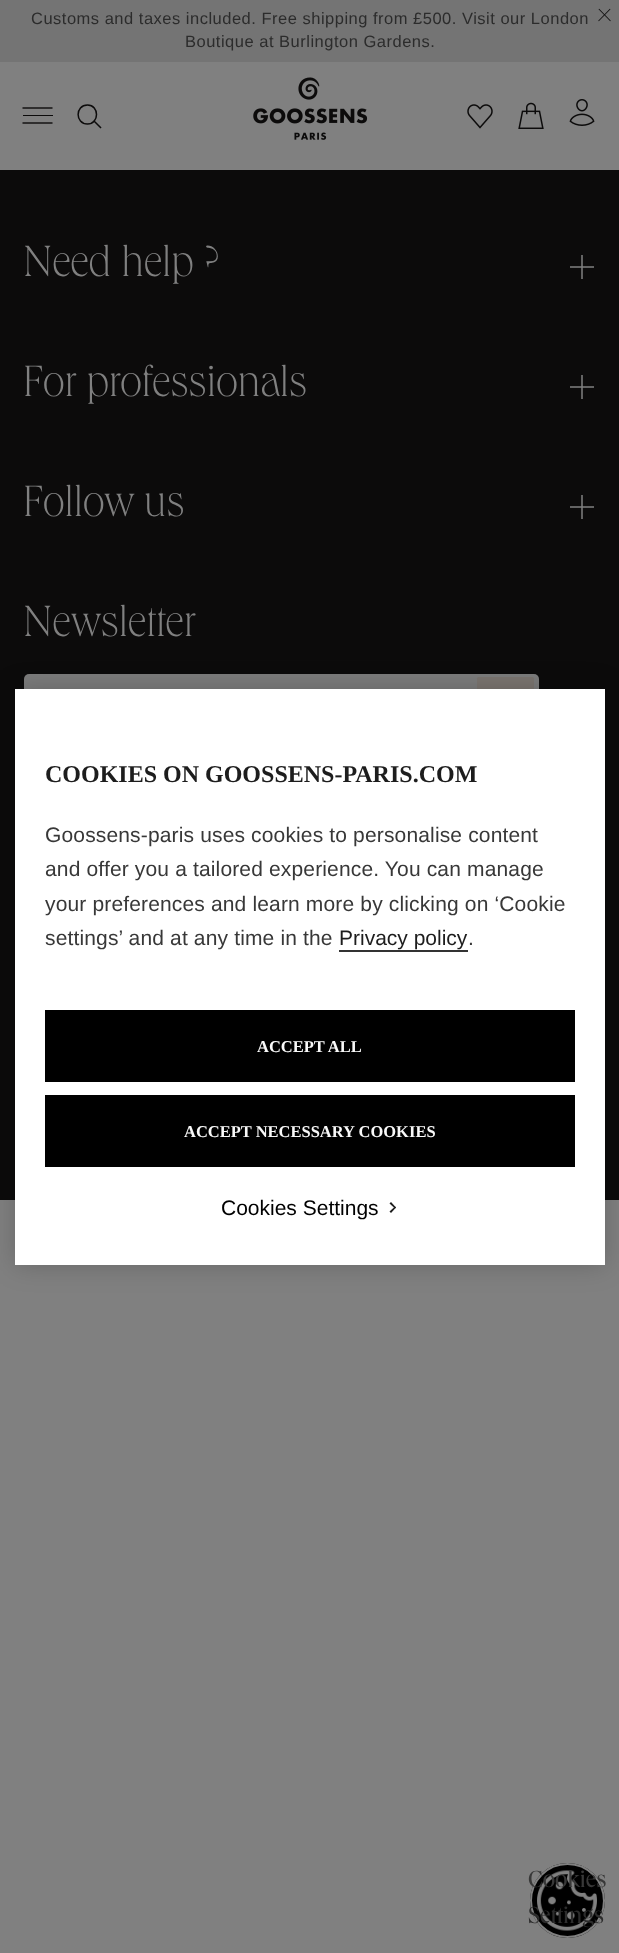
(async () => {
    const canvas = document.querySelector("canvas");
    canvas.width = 619;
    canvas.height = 1953;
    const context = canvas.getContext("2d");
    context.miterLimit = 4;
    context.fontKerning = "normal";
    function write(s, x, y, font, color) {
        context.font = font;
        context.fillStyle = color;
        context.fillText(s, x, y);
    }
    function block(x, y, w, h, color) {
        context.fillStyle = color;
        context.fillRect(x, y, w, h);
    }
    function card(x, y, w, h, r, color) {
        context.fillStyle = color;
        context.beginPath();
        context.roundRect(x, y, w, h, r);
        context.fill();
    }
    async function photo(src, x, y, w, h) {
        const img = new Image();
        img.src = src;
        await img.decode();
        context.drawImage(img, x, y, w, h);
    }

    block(0, 0, 619, 1953, "rgb(128, 128, 128)");
    block(0, 0, 619, 62, "rgb(116, 116, 116)");
    context.letterSpacing = "0.5px";
    write("Customs and taxes included. Free shipping from £500. Visit our London", 31, 24, "16.5px Liberation Sans", "rgb(44, 44, 44)");
    await photo("media/1.png", 598, 8, 13, 14);
    write("Boutique at Burlington Gardens.", 185, 47, "16.5px Liberation Sans", "rgb(44, 44, 44)");
    context.beginPath();
    context.moveTo(22.5, 108);
    context.lineTo(52.5, 108);
    context.strokeStyle = "rgb(12, 11, 11)";
    context.lineWidth = 1.4;
    context.stroke();
    block(23, 115, 30, 1, "rgb(12, 11, 11)");
    context.beginPath();
    context.moveTo(22.5, 123);
    context.lineTo(52.5, 123);
    context.stroke();
    context.beginPath();
    context.moveTo(87.5, 124);
    context.bezierCurveTo(99.5, 124, 99.5, 105, 87.5, 105);
    context.bezierCurveTo(75, 105, 75, 124, 87.5, 124);
    context.closePath();
    context.moveTo(94, 121);
    context.lineTo(100.5, 127.5);
    context.lineWidth = 1.5;
    context.lineCap = "square";
    context.stroke();
    await photo("media/2.png", 253, 77, 115, 63);
    await photo("media/3.png", 467, 104, 26, 25);
    await photo("media/4.png", 518, 102, 26, 27);
    await photo("media/5.png", 569, 99, 26, 27);
    block(0, 170, 619, 1030, "rgb(12, 11, 11)");
    block(581, 495, 2, 24, "rgb(99, 99, 99)");
    block(581, 375, 2, 24, "rgb(99, 99, 99)");
    block(581, 255, 2, 24, "rgb(99, 99, 99)");
    context.letterSpacing = "0px";
    write("Need help ?", 23, 276, "100 45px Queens", "rgb(128, 128, 128)");
    block(570, 266, 24, 2, "rgb(99, 99, 99)");
    block(581, 266, 2, 2, "rgb(121, 121, 121)");
    write("For professionals", 23, 396, "100 45px Queens", "rgb(128, 128, 128)");
    block(570, 386, 24, 2, "rgb(99, 99, 99)");
    block(581, 386, 2, 2, "rgb(121, 121, 121)");
    write("Follow us", 23, 516, "100 45px Queens", "rgb(128, 128, 128)");
    block(570, 506, 24, 2, "rgb(99, 99, 99)");
    block(581, 506, 2, 2, "rgb(121, 121, 121)");
    write("Newsletter", 23, 636, "100 45px Queens", "rgb(128, 128, 128)");
    card(24, 674, 515, 61, 5, "rgb(124, 124, 124)");
    card(477, 677, 57, 54, 1.5, "rgb(123, 117, 112)");
    context.fillStyle = "rgba(0, 0, 0, 0.2)";
    context.filter = "blur(13.5px)";
    context.beginPath();
    context.rect(15, 689, 590, 576);
    context.fill();
    context.filter = "none";
    block(15, 689, 590, 576, "rgb(255, 255, 255)");
    write("COOKIES ON GOOSSENS-PARIS.COM", 45, 782, "bold 24px Liberation Serif", "rgb(29, 29, 29)");
    context.letterSpacing = "0.15px";
    write("Goossens-paris uses cookies to personalise content", 45, 842, "21px Liberation Sans", "rgb(56, 56, 56)");
    write("and offer you a tailored experience. You can manage", 45, 876, "21px Liberation Sans", "rgb(56, 56, 56)");
    write("your preferences and learn more by clicking on ‘Cookie", 45, 911, "21px Liberation Sans", "rgb(56, 56, 56)");
    write("settings’ and at any time in the", 45, 945, "21px Liberation Sans", "rgb(56, 56, 56)");
    context.letterSpacing = "0px";
    write("Privacy policy", 339, 945, "21px Liberation Sans", "rgb(29, 29, 29)");
    block(339, 950, 129, 2, "rgb(51, 51, 51)");
    context.letterSpacing = "0.15px";
    write(".", 468, 945, "21px Liberation Sans", "rgb(56, 56, 56)");
    block(45, 1010, 530, 72, "rgb(0, 0, 0)");
    context.letterSpacing = "0px";
    write("ACCEPT ALL", 257, 1052, "bold 16.5px Liberation Serif", "rgb(249, 249, 249)");
    block(45, 1095, 530, 72, "rgb(0, 0, 0)");
    write("ACCEPT NECESSARY COOKIES", 184, 1137, "bold 16.5px Liberation Serif", "rgb(249, 249, 249)");
    write("Cookies Settings", 221, 1215, "21px Liberation Sans", "rgb(0, 0, 0)");
    context.fillStyle = "rgb(29, 29, 29)";
    context.beginPath();
    context.moveTo(389.5, 1203.5);
    context.lineTo(391, 1202);
    context.lineTo(396, 1207.5);
    context.lineTo(395, 1208.5);
    context.closePath();
    context.fill();
    context.beginPath();
    context.moveTo(389.5, 1211.5);
    context.lineTo(395, 1206.5);
    context.lineTo(396, 1207.5);
    context.lineTo(391, 1213);
    context.closePath();
    context.fill();
    context.fillStyle = "rgb(0, 0, 0)";
    context.beginPath();
    context.arc(567.5, 1900.5, 37.5, 0, Math.PI * 2);
    context.fill();
    await photo("media/6.png", 537, 1870, 60, 61);
    context.beginPath();
    context.arc(567.5, 1900.5, 36.5, 0, Math.PI * 2);
    context.strokeStyle = "rgb(128, 128, 128)";
    context.lineWidth = 2;
    context.stroke();
    write("Cookies", 528, 1887, "24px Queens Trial", "rgb(56, 56, 56)");
    write("Settings", 528, 1923, "24px Queens Trial", "rgb(44, 44, 44)");
})();
